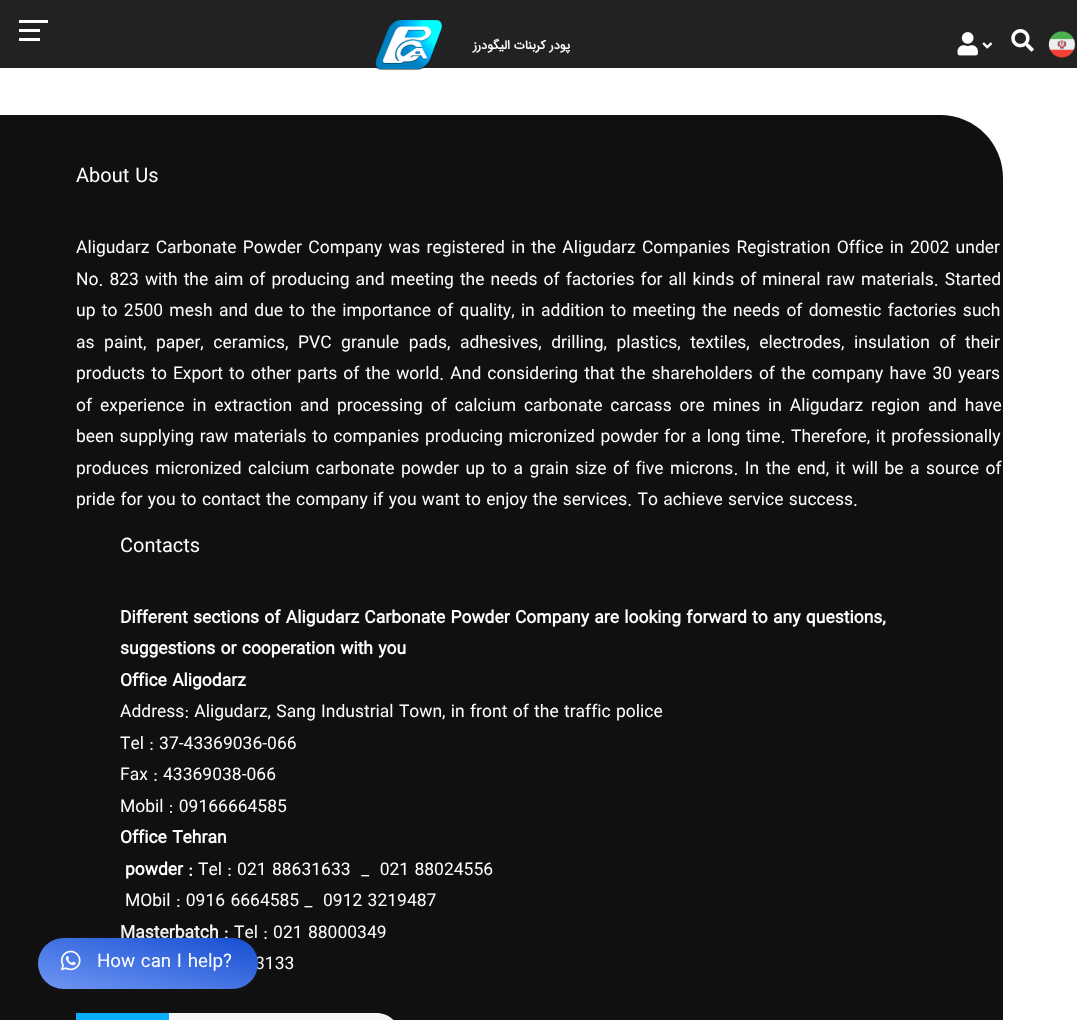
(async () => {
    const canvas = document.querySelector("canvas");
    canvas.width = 1077;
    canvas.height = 1020;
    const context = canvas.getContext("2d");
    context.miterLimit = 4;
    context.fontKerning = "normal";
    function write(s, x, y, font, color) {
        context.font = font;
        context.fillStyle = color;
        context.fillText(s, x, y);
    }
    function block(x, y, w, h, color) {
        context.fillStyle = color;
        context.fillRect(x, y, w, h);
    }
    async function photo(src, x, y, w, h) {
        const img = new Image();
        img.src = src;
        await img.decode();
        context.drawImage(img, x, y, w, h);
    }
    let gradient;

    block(0, 0, 1077, 1020, "rgb(255, 255, 255)");
    context.fillStyle = "rgba(0, 0, 0, 0.3)";
    context.filter = "blur(0.5px)";
    context.beginPath();
    context.rect(0, 0, 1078, 68);
    context.fill();
    context.filter = "none";
    block(0, 0, 1077, 68, "rgb(34, 34, 34)");
    block(19, 29, 21, 3, "rgb(255, 255, 255)");
    block(19, 20, 29, 3, "rgb(255, 255, 255)");
    block(19, 38, 21, 3, "rgb(255, 255, 255)");
    await photo("media/1.png", 375, 20, 68, 50);
    context.direction = "rtl";
    write("پودر کربنات الیگودرز", 570, 49, "bold 12.5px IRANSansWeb", "rgb(255, 255, 255)");
    await photo("media/2.png", 957, 32, 21, 24);
    await photo("media/3.png", 982, 42, 10, 7);
    await photo("media/4.png", 1011, 29, 23, 23);
    await photo("media/5.png", 1048, 31, 28, 27);
    context.fillStyle = "rgb(17, 16, 16)";
    context.beginPath();
    context.moveTo(0, 115);
    context.lineTo(940, 115);
    context.bezierCurveTo(975, 115, 1003, 143, 1003, 178);
    context.lineTo(1003, 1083);
    context.lineTo(0, 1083);
    context.closePath();
    context.fill();
    context.direction = "ltr";
    write("About Us", 76, 182, "20px IRANSansWeb", "rgb(255, 255, 255)");
    context.wordSpacing = "1px";
    write("Aligudarz Carbonate Powder Company was registered in the Aligudarz Companies Registration Office in 2002 under", 76, 253, "17.5px IRANSansWeb", "rgb(255, 255, 255)");
    context.wordSpacing = "0.7px";
    write("No. 823 with the aim of producing and meeting the needs of factories for all kinds of mineral raw materials. Started", 76, 285, "17.5px IRANSansWeb", "rgb(255, 255, 255)");
    context.wordSpacing = "1px";
    write("up to 2500 mesh and due to the importance of quality, in addition to meeting the needs of domestic factories such", 76, 316, "17.5px IRANSansWeb", "rgb(255, 255, 255)");
    context.wordSpacing = "4.25px";
    write("as paint, paper, ceramics, PVC granule pads, adhesives, drilling, plastics, textiles, electrodes, insulation of their", 76, 348, "17.5px IRANSansWeb", "rgb(255, 255, 255)");
    context.wordSpacing = "0.75px";
    write("products to Export to other parts of the world. And considering that the shareholders of the company have 30 years", 76, 379, "17.5px IRANSansWeb", "rgb(255, 255, 255)");
    context.wordSpacing = "2.6px";
    write("of experience in extraction and processing of calcium carbonate carcass ore mines in Aligudarz region and have", 76, 411, "17.5px IRANSansWeb", "rgb(255, 255, 255)");
    context.wordSpacing = "0.25px";
    write("been supplying raw materials to companies producing micronized powder for a long time. Therefore, it professionally", 76, 442, "17.5px IRANSansWeb", "rgb(255, 255, 255)");
    context.wordSpacing = "1.2px";
    write("produces micronized calcium carbonate powder up to a grain size of five microns. In the end, it will be a source of", 76, 474, "17.5px IRANSansWeb", "rgb(255, 255, 255)");
    context.wordSpacing = "0px";
    write("pride for you to contact the company if you want to enjoy the services. To achieve service success.", 76, 505, "17.5px IRANSansWeb", "rgb(255, 255, 255)");
    write("Contacts", 120, 552, "20px IRANSansWeb", "rgb(255, 255, 255)");
    write("Different sections of Aligudarz Carbonate Powder Company are looking forward to any questions,", 120, 623, "bold 17.5px IRANSansWeb", "rgb(255, 255, 255)");
    write("suggestions or cooperation with you", 120, 654, "bold 17.5px IRANSansWeb", "rgb(255, 255, 255)");
    write("Office Aligodarz", 120, 686, "bold 17.5px IRANSansWeb", "rgb(255, 255, 255)");
    write("Address: Aligudarz, Sang Industrial Town, in front of the traffic police", 120, 717, "17.5px IRANSansWeb", "rgb(255, 255, 255)");
    write("Tel : 37-43369036-066", 120, 749, "17.5px IRANSansWeb", "rgb(255, 255, 255)");
    write("Fax : 43369038-066", 120, 780, "17.5px IRANSansWeb", "rgb(255, 255, 255)");
    write("Mobil : 09166664585", 120, 812, "17.5px IRANSansWeb", "rgb(255, 255, 255)");
    write("Office Tehran", 120, 843, "bold 17.5px IRANSansWeb", "rgb(255, 255, 255)");
    write("powder :", 125, 875, "bold 17.5px IRANSansWeb", "rgb(255, 255, 255)");
    write("Tel : 021 88631633  _  021 88024556", 198, 875, "17.5px IRANSansWeb", "rgb(255, 255, 255)");
    write("MObil : 0916 6664585 _  0912 3219487", 125, 906, "17.5px IRANSansWeb", "rgb(255, 255, 255)");
    write("Masterbatch :", 120, 938, "bold 17.5px IRANSansWeb", "rgb(255, 255, 255)");
    write("Tel : 021 88000349", 234, 938, "17.5px IRANSansWeb", "rgb(255, 255, 255)");
    write("3133", 255, 969, "17.5px IRANSansWeb", "rgb(255, 255, 255)");
    context.fillStyle = "rgb(244, 244, 249)";
    context.beginPath();
    context.moveTo(76, 1013);
    context.lineTo(376, 1013);
    context.bezierCurveTo(390, 1013, 401, 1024, 401, 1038);
    context.lineTo(401, 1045);
    context.lineTo(101, 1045);
    context.bezierCurveTo(87, 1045, 76, 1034, 76, 1020);
    context.closePath();
    context.fill();
    block(76, 1013, 93, 7, "rgb(10, 173, 253)");
    context.fillStyle = "rgba(32, 33, 36, 0.28)";
    context.filter = "blur(9.5px)";
    context.beginPath();
    context.roundRect(38, 939, 220, 51, 25.5);
    context.fill();
    context.filter = "none";
    gradient = context.createLinearGradient(136, 1012, 159, 915);
    gradient.addColorStop(0, "rgb(111, 150, 243)");
    gradient.addColorStop(1, "rgb(22, 78, 210)");
    context.fillStyle = gradient;
    context.beginPath();
    context.roundRect(38, 938, 220, 51, 25.5);
    context.fill();
    await photo("media/6.png", 60, 950, 21, 21);
    write("How can I help?", 97, 967, "18.75px IRANSansWeb", "rgb(255, 255, 255)");
})();
